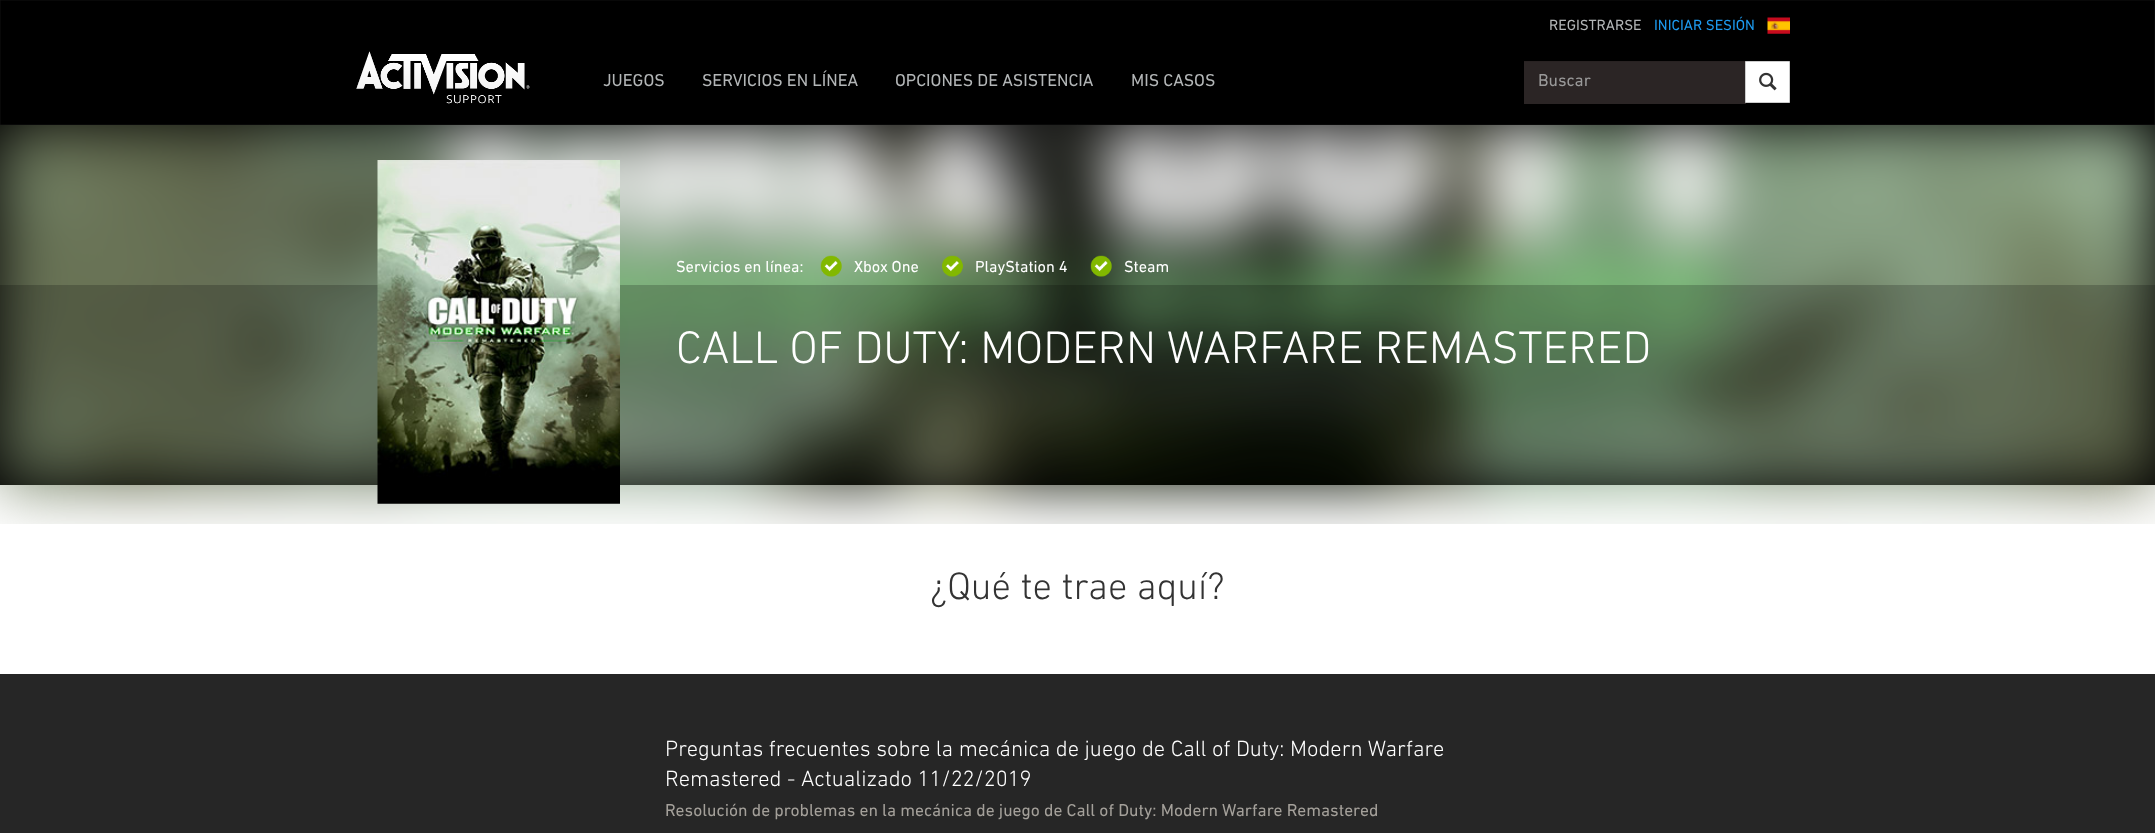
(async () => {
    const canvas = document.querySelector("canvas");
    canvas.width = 2155;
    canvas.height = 833;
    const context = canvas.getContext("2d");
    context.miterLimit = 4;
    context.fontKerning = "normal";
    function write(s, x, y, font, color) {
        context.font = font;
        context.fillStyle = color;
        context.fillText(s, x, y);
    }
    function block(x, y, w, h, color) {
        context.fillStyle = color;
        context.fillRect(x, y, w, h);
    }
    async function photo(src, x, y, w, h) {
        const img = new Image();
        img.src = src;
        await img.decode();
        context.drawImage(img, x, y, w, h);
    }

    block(0, 0, 2155, 833, "rgb(38, 38, 38)");
    context.fillStyle = "rgb(0, 0, 0)";
    context.beginPath();
    context.rect(0.5, 0.5, 2154, 124);
    context.fill();
    context.strokeStyle = "rgb(8, 8, 8)";
    context.stroke();
    write("REGISTRARSE", 1549, 30, "15px DIN Next", "rgb(179, 182, 183)");
    write("INICIAR SESIÓN", 1654, 30, "15px DIN Next", "rgb(29, 155, 240)");
    await photo("media/1.png", 1767, 17, 23, 17);
    await photo("media/2.png", 356, 51, 174, 53);
    write("JUEGOS", 603, 86, "17.5px DIN Next", "rgb(179, 182, 183)");
    write("SERVICIOS EN LÍNEA", 702, 86, "17.5px DIN Next", "rgb(179, 182, 183)");
    write("OPCIONES DE ASISTENCIA", 895, 86, "17.5px DIN Next", "rgb(179, 182, 183)");
    write("MIS CASOS", 1131, 86, "17.5px DIN Next", "rgb(179, 182, 183)");
    block(1524, 62, 222, 42, "rgb(43, 37, 37)");
    block(1524, 61, 222, 1, "rgb(40, 34, 34)");
    write("Buscar", 1538, 86, "17.5px DIN Next", "rgb(153, 153, 153)");
    context.fillStyle = "rgb(255, 255, 255)";
    context.beginPath();
    context.rect(1745.5, 61.5, 44, 41);
    context.fill();
    context.strokeStyle = "rgb(204, 204, 204)";
    context.stroke();
    await photo("media/3.png", 1759, 72, 18, 19);
    block(0, 125, 2155, 360, "rgb(0, 0, 0)");
    block(0, 485, 2155, 189, "rgb(255, 255, 255)");
    await photo("media/4.png", 0, 125, 2155, 399);
    block(0, 285, 2155, 200, "rgba(0, 0, 0, 0.2)");
    await photo("media/5.png", 377, 160, 243, 344);
    write("Servicios en línea:", 676, 272, "16.25px DIN Next", "rgb(255, 255, 255)");
    await photo("media/6.png", 820, 255, 22, 22);
    write("Xbox One", 854, 272, "16.25px DIN Next", "rgb(255, 255, 255)");
    await photo("media/7.png", 942, 255, 21, 22);
    write("PlayStation 4", 975, 272, "16.25px DIN Next", "rgb(255, 255, 255)");
    await photo("media/8.png", 1090, 255, 22, 22);
    write("Steam", 1124, 272, "16.25px DIN Next", "rgb(255, 255, 255)");
    write("CALL OF DUTY: MODERN WARFARE REMASTERED", 676, 363, "300 46.25px DIN Next", "rgb(255, 255, 255)");
    write("¿Qué te trae aquí?", 930, 599, "300 38.75px DIN Next", "rgb(51, 51, 51)");
    write("Preguntas frecuentes sobre la mecánica de juego de Call of Duty: Modern Warfare", 665, 756, "300 22.5px DIN Next", "rgb(255, 255, 255)");
    write("Remastered - Actualizado 11/22/2019", 665, 786, "300 22.5px DIN Next", "rgb(255, 255, 255)");
    write("Resolución de problemas en la mecánica de juego de Call of Duty: Modern Warfare Remastered", 665, 816, "17.5px DIN Next", "rgb(164, 160, 154)");
})();
